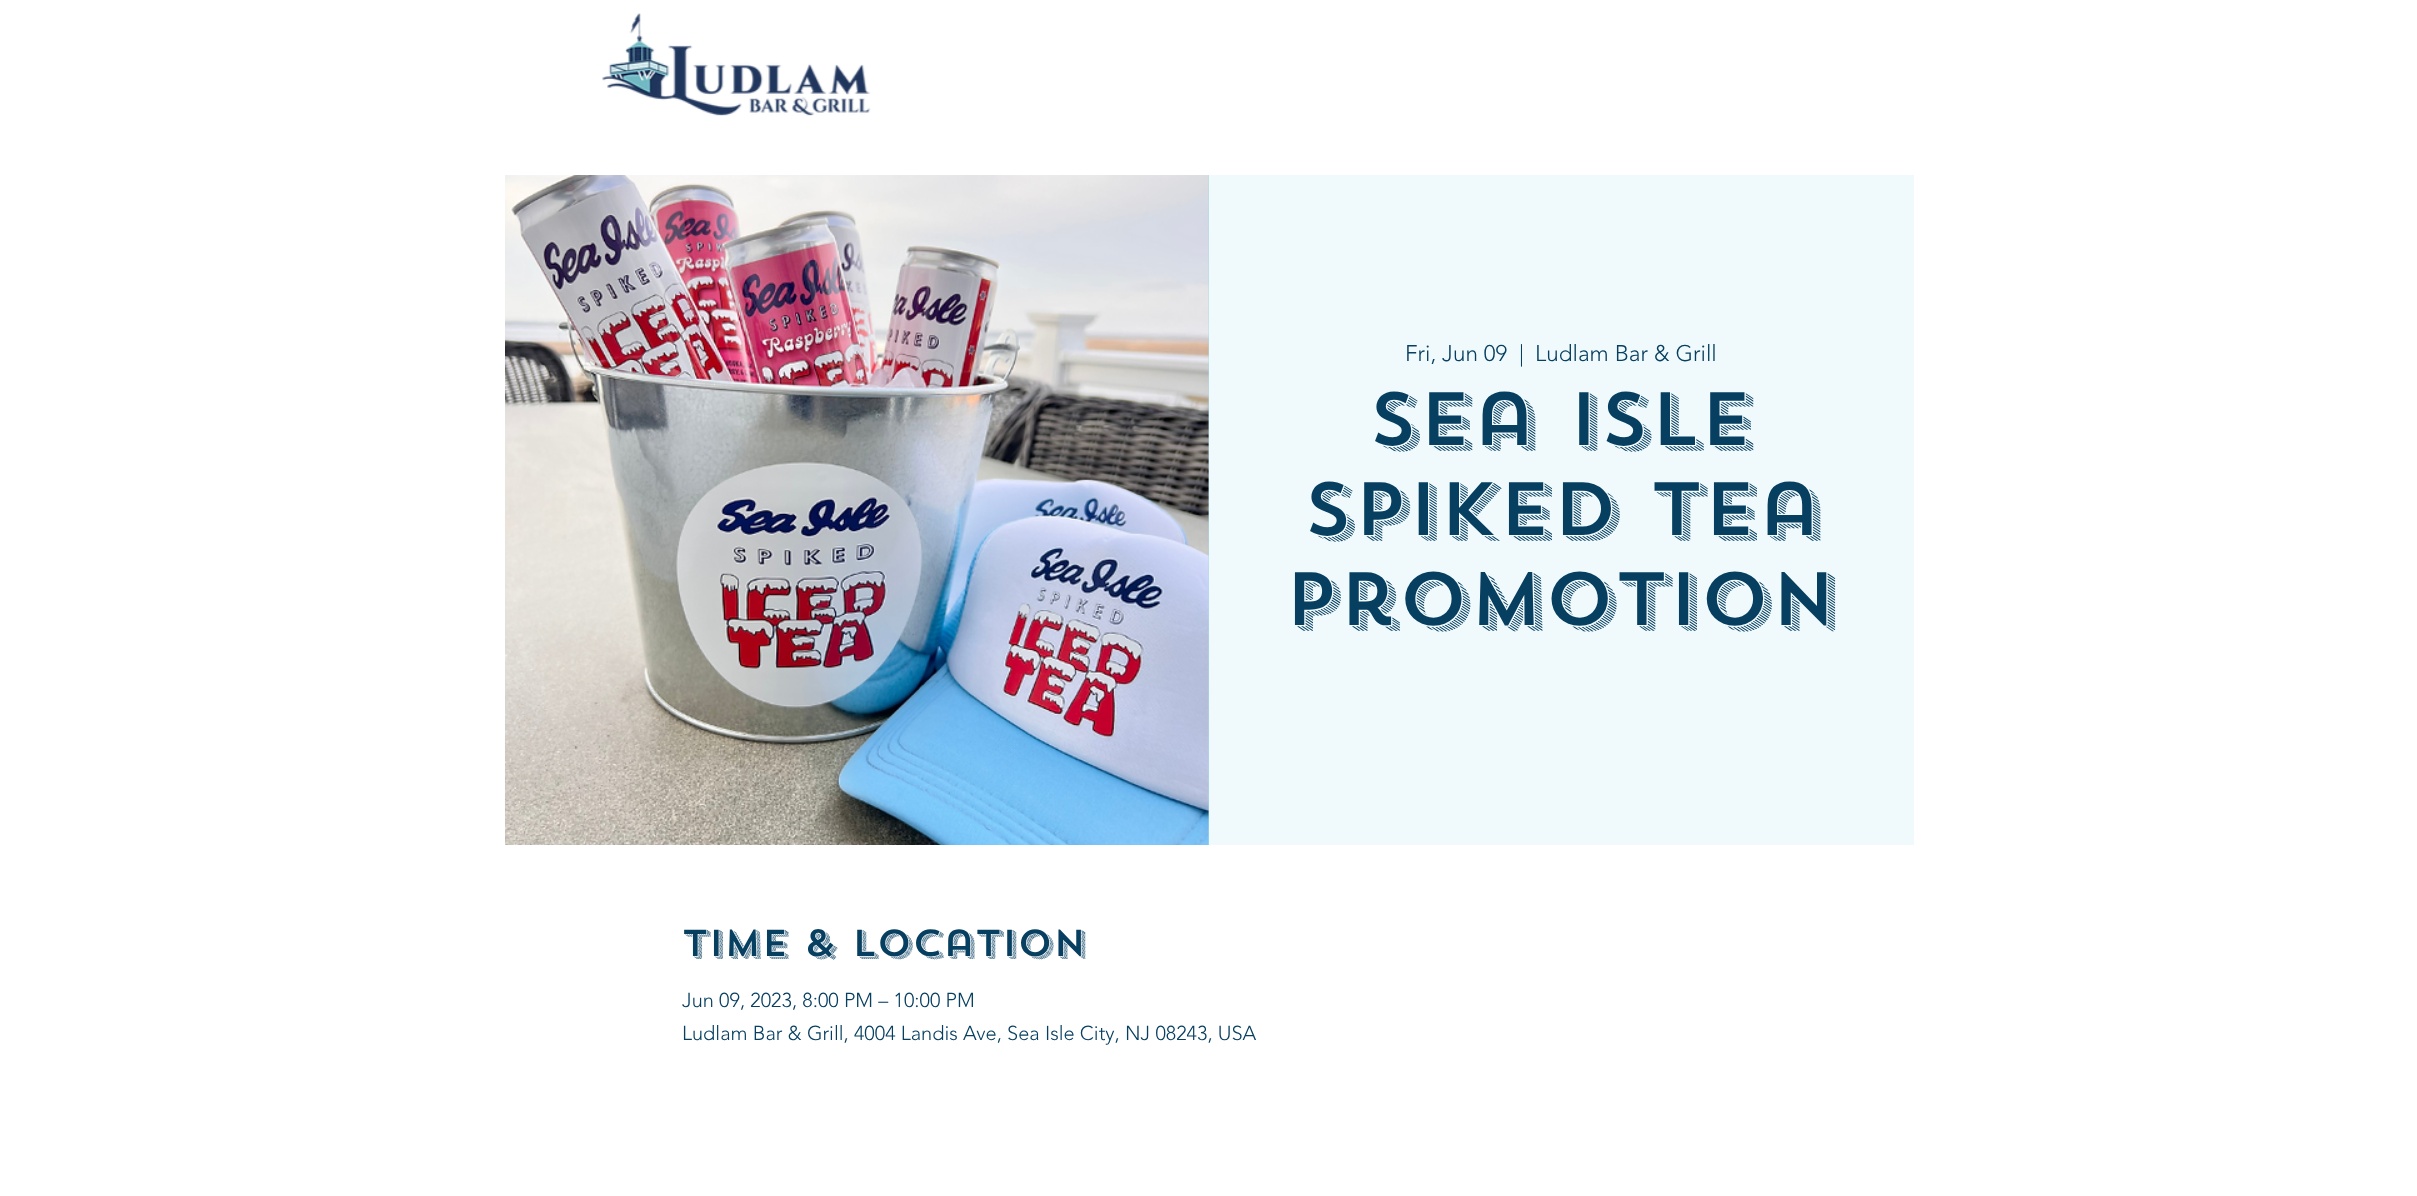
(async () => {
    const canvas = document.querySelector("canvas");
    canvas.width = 2417;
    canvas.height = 1196;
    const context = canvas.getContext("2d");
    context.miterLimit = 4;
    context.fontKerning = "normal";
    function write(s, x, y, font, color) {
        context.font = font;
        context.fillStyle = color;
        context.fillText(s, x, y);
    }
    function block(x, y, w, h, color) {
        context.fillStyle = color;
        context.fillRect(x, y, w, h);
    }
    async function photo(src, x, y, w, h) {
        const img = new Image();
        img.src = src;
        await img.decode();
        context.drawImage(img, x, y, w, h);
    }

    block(0, 0, 2417, 1196, "rgb(255, 255, 255)");
    await photo("media/1.png", 602, 13, 269, 103);
    block(1208, 175, 1, 670, "rgb(167, 222, 231)");
    await photo("media/2.png", 505, 175, 704, 670);
    block(1209, 175, 705, 670, "rgb(240, 250, 252)");
    write("Fri, Jun 09", 1405, 361, "300 22.5px 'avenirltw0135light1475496'", "rgb(7, 63, 96)");
    write("|", 1519, 361, "300 22.5px 'avenirltw0135light1475496'", "rgb(7, 63, 96)");
    write("Ludlam Bar & Grill", 1535, 361, "300 22.5px 'avenirltw0135light1475496'", "rgb(7, 63, 96)");
    write("Sea Isle", 1368, 445, "500 75px 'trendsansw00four'", "rgb(7, 63, 96)");
    write("Spiked Tea", 1303, 535, "500 75px 'trendsansw00four'", "rgb(7, 63, 96)");
    write("Promotion", 1284, 625, "500 75px 'trendsansw00four'", "rgb(7, 63, 96)");
    write("Time & Location", 682, 956, "500 37.5px 'trendsansw00four'", "rgb(7, 63, 96)");
    write("Jun 09, 2023, 8:00 PM – 10:00 PM", 682, 1007, "300 20px 'avenirltw0135light1475496'", "rgb(7, 63, 96)");
    write("Ludlam Bar & Grill, 4004 Landis Ave, Sea Isle City, NJ 08243, USA", 682, 1040, "300 20px 'avenirltw0135light1475496'", "rgb(7, 63, 96)");
})();
